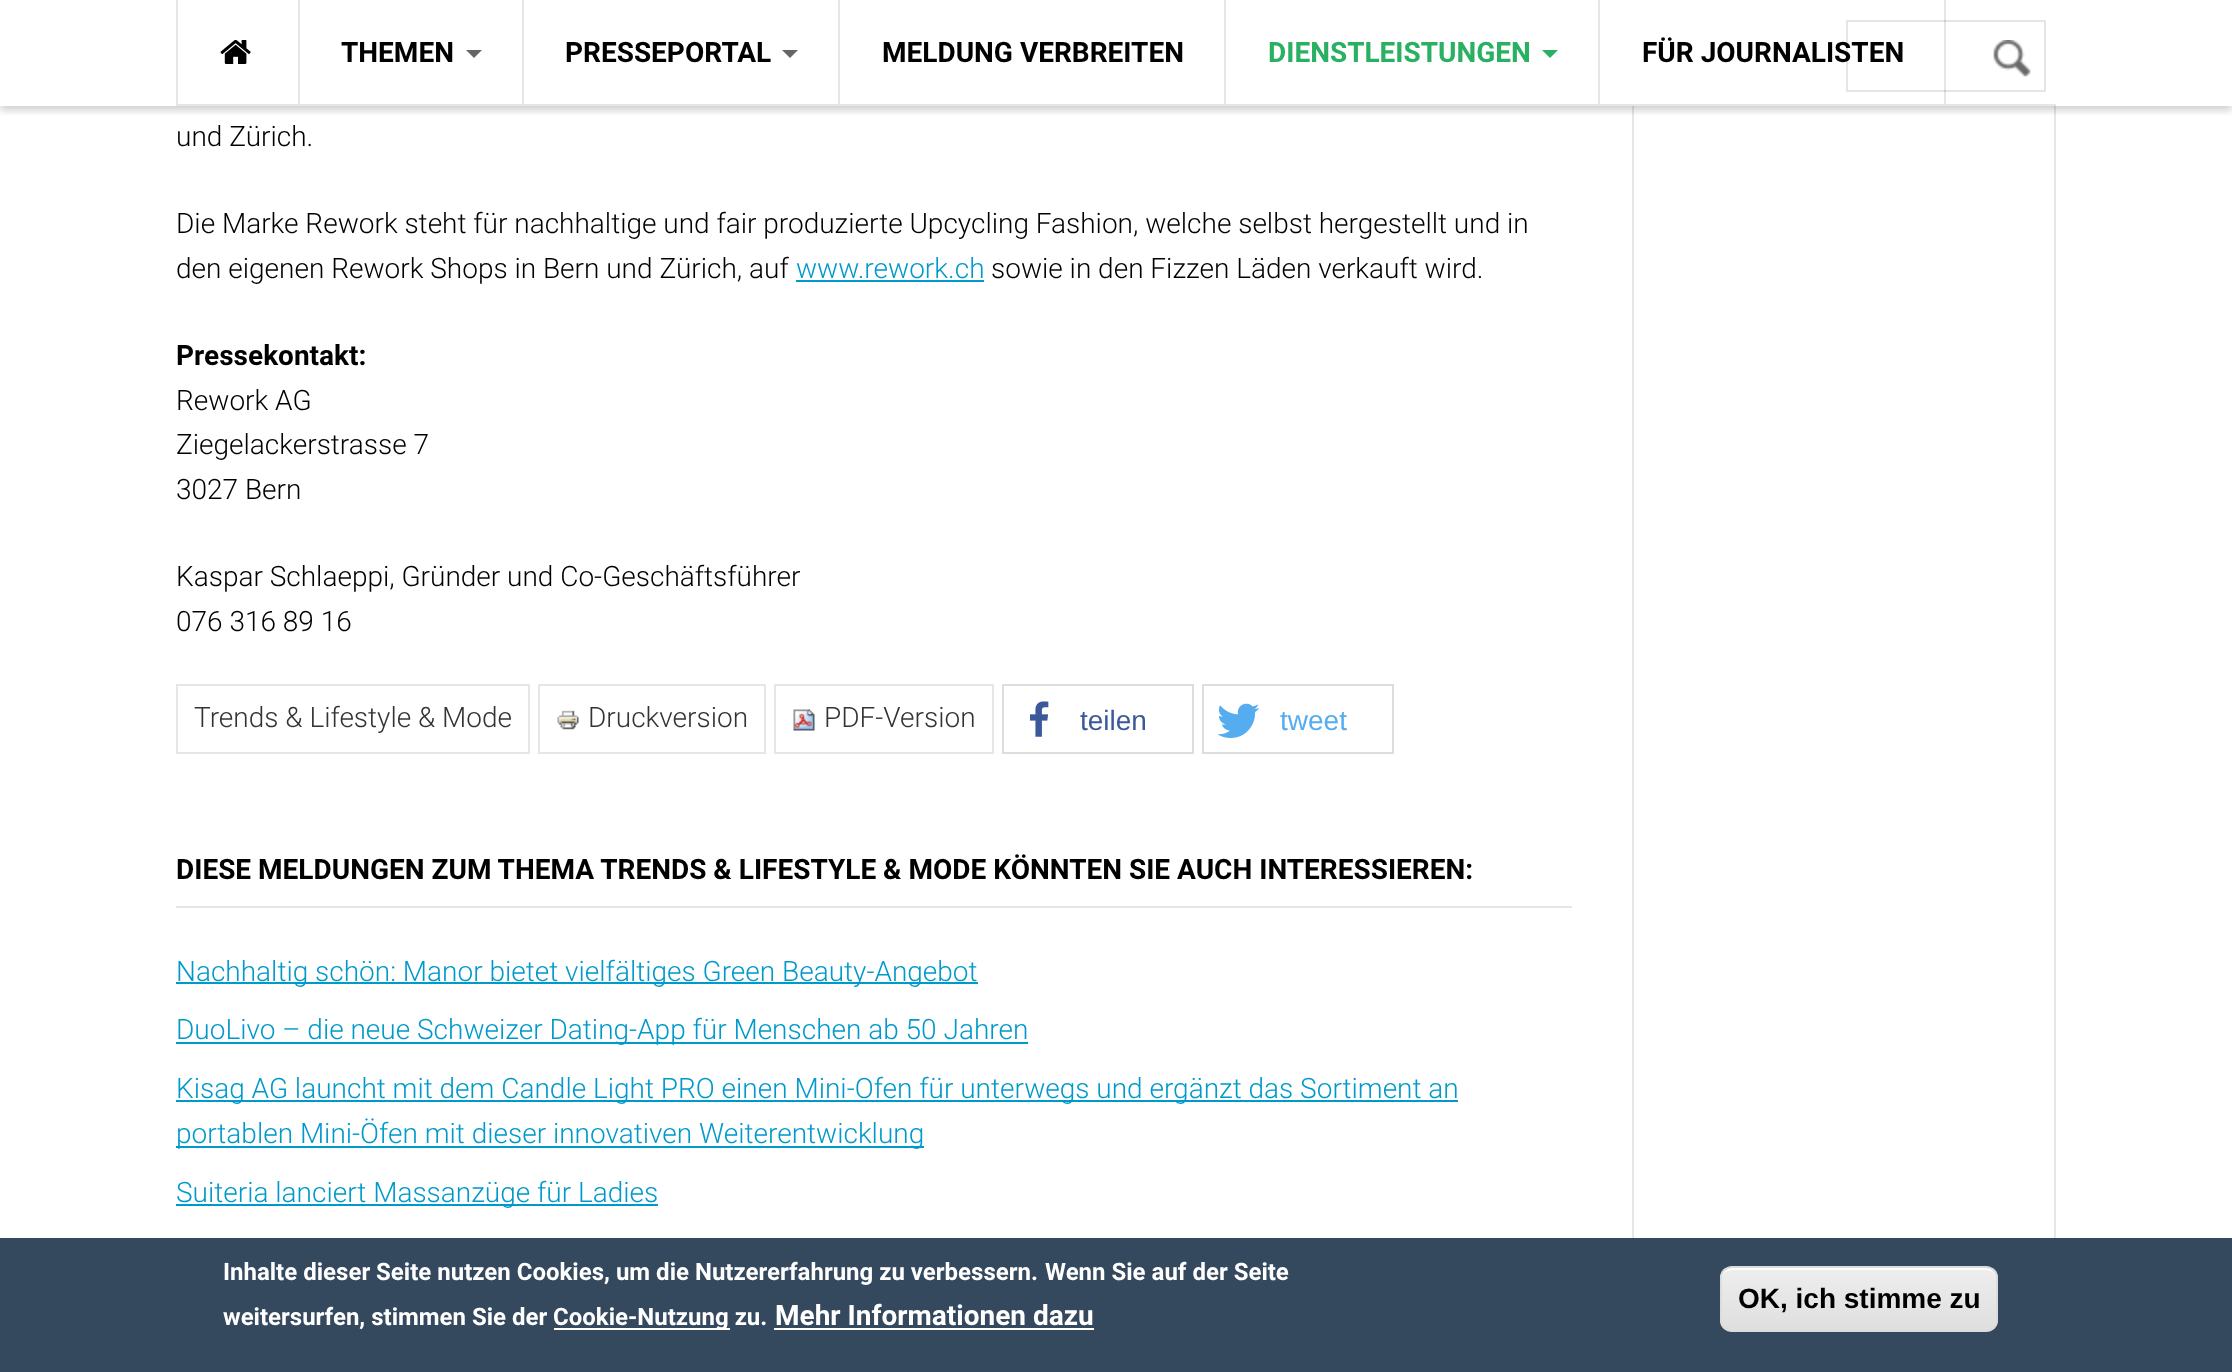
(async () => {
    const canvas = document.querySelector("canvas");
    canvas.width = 2232;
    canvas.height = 1372;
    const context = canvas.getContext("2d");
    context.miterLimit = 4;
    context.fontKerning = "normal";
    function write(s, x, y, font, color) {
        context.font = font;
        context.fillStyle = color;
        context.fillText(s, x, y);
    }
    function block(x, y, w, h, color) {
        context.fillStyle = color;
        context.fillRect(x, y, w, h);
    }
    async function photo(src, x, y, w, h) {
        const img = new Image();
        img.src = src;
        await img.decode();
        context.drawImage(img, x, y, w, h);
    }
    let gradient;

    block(0, 0, 2232, 1372, "rgb(255, 255, 255)");
    block(1632, 106, 2, 1132, "rgb(230, 230, 230)");
    block(2054, 106, 2, 1132, "rgb(230, 230, 230)");
    context.save();
    context.beginPath();
    context.rect(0, 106, 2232, 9);
    context.clip();
    context.fillStyle = "rgba(0, 0, 0, 0.2)";
    context.filter = "blur(4px)";
    context.beginPath();
    context.rect(0, 0, 2232, 110);
    context.fill();
    context.filter = "none";
    context.restore();
    block(176, 104, 1880, 2, "rgb(230, 230, 230)");
    block(176, 0, 2, 104, "rgb(230, 230, 230)");
    await photo("media/1.png", 220, 40, 31, 24);
    block(298, 0, 2, 104, "rgb(230, 230, 230)");
    write("THEMEN", 341, 62, "bold 28px Roboto", "rgb(0, 0, 0)");
    context.fillStyle = "rgb(102, 102, 102)";
    context.beginPath();
    context.moveTo(466, 50);
    context.lineTo(482, 50);
    context.lineTo(474, 58);
    context.closePath();
    context.fill();
    block(522, 0, 2, 104, "rgb(230, 230, 230)");
    write("PRESSEPORTAL", 565, 62, "bold 28px Roboto", "rgb(0, 0, 0)");
    context.fillStyle = "rgb(102, 102, 102)";
    context.beginPath();
    context.moveTo(782, 50);
    context.lineTo(798, 50);
    context.lineTo(790, 58);
    context.closePath();
    context.fill();
    block(838, 0, 2, 104, "rgb(230, 230, 230)");
    write("MELDUNG VERBREITEN", 882, 62, "bold 28px Roboto", "rgb(0, 0, 0)");
    block(1224, 0, 2, 104, "rgb(230, 230, 230)");
    write("DIENSTLEISTUNGEN", 1268, 62, "bold 28px Roboto", "rgb(42, 176, 98)");
    context.beginPath();
    context.moveTo(1542, 50);
    context.lineTo(1558, 50);
    context.lineTo(1550, 58);
    context.closePath();
    context.fill();
    block(1944, 0, 2, 104, "rgb(230, 230, 230)");
    block(1598, 0, 2, 104, "rgb(230, 230, 230)");
    write("FÜR JOURNALISTEN", 1642, 62, "bold 28px Roboto", "rgb(0, 0, 0)");
    context.strokeStyle = "rgba(0, 0, 0, 0.1)";
    context.lineWidth = 2;
    context.strokeRect(1847, 21, 198, 70);
    await photo("media/2.png", 1993, 40, 38, 37);
    write("und Zürich.", 176, 146, "300 28px Roboto", "rgb(0, 0, 0)");
    write("Die Marke Rework steht für nachhaltige und fair produzierte Upcycling Fashion, welche selbst hergestellt und in", 176, 233, "300 28px Roboto", "rgb(0, 0, 0)");
    write("den eigenen Rework Shops in Bern und Zürich, auf", 176, 278, "300 28px Roboto", "rgb(0, 0, 0)");
    write("www.rework.ch", 796, 278, "300 28px Roboto", "rgb(0, 153, 204)");
    block(796, 280, 188, 2, "rgb(0, 153, 204)");
    write("sowie in den Fizzen Läden verkauft wird.", 991, 278, "300 28px Roboto", "rgb(0, 0, 0)");
    write("Pressekontakt:", 176, 365, "bold 28px Roboto", "rgb(0, 0, 0)");
    write("Rework AG", 176, 410, "300 28px Roboto", "rgb(0, 0, 0)");
    write("Ziegelackerstrasse 7", 176, 454, "300 28px Roboto", "rgb(0, 0, 0)");
    write("3027 Bern", 176, 499, "300 28px Roboto", "rgb(0, 0, 0)");
    write("Kaspar Schlaeppi, Gründer und Co-Geschäftsführer", 176, 586, "300 28px Roboto", "rgb(0, 0, 0)");
    write("076 316 89 16", 176, 631, "300 28px Roboto", "rgb(0, 0, 0)");
    context.strokeStyle = "rgb(230, 230, 230)";
    context.strokeRect(177, 685, 352, 68);
    write("Trends & Lifestyle & Mode", 194, 727, "300 28px Roboto", "rgb(51, 51, 51)");
    context.strokeRect(539, 685, 226, 68);
    await photo("media/3.png", 557, 710, 22, 20);
    write("Druckversion", 588, 727, "300 28px Roboto", "rgb(51, 51, 51)");
    context.strokeRect(775, 685, 218, 68);
    await photo("media/4.png", 793, 709, 22, 22);
    write("PDF-Version", 824, 727, "300 28px Roboto", "rgb(51, 51, 51)");
    context.strokeStyle = "rgb(221, 221, 221)";
    context.strokeRect(1003, 685, 190, 68);
    await photo("media/5.png", 1030, 701, 19, 36);
    write("teilen", 1080, 730, "28px Liberation Sans", "rgb(59, 89, 152)");
    context.strokeRect(1203, 685, 190, 68);
    await photo("media/6.png", 1217, 703, 43, 35);
    write("tweet", 1280, 730, "28px Liberation Sans", "rgb(85, 172, 238)");
    block(176, 906, 1396, 2, "rgb(230, 230, 230)");
    write("DIESE MELDUNGEN ZUM THEMA TRENDS & LIFESTYLE & MODE KÖNNTEN SIE AUCH INTERESSIEREN:", 176, 879, "bold 28px Roboto", "rgb(0, 0, 0)");
    block(176, 982, 802, 2, "rgb(0, 153, 204)");
    write("Nachhaltig schön: Manor bietet vielfältiges Green Beauty-Angebot", 176, 981, "300 28px Roboto", "rgb(0, 153, 204)");
    block(176, 1042, 852, 2, "rgb(0, 153, 204)");
    write("DuoLivo – die neue Schweizer Dating-App für Menschen ab 50 Jahren", 176, 1039, "300 28px Roboto", "rgb(0, 153, 204)");
    block(176, 1100, 1282, 2, "rgb(0, 153, 204)");
    write("Kisag AG launcht mit dem Candle Light PRO einen Mini-Ofen für unterwegs und ergänzt das Sortiment an", 176, 1098, "300 28px Roboto", "rgb(0, 153, 204)");
    block(176, 1146, 748, 2, "rgb(0, 153, 204)");
    write("portablen Mini-Öfen mit dieser innovativen Weiterentwicklung", 176, 1143, "300 28px Roboto", "rgb(0, 153, 204)");
    block(176, 1204, 482, 2, "rgb(0, 153, 204)");
    write("Suiteria lanciert Massanzüge für Ladies", 176, 1202, "300 28px Roboto", "rgb(0, 153, 204)");
    block(0, 1238, 2232, 134, "rgb(52, 73, 94)");
    write("Inhalte dieser Seite nutzen Cookies, um die Nutzererfahrung zu verbessern.", 223, 1280, "bold 24px Roboto", "rgb(255, 255, 255)");
    write("Wenn Sie auf der Seite", 1045, 1280, "bold 24px Roboto", "rgb(255, 255, 255)");
    write("weitersurfen, stimmen Sie der", 223, 1325, "bold 24px Roboto", "rgb(255, 255, 255)");
    block(554, 1328, 176, 2, "rgb(255, 255, 255)");
    write("Cookie-Nutzung zu.", 553, 1325, "bold 24px Roboto", "rgb(255, 255, 255)");
    write("Mehr Informationen dazu", 775, 1325, "bold 28px Roboto", "rgb(255, 255, 255)");
    block(774, 1328, 320, 2, "rgb(255, 255, 255)");
    context.save();
    context.beginPath();
    context.roundRect(1720, 1266, 278, 66, 12);
    context.clip();
    gradient = context.createLinearGradient(1859, 1268, 1859, 1330);
    gradient.addColorStop(0.05, "rgb(237, 237, 237)");
    gradient.addColorStop(1, "rgb(223, 223, 223)");
    context.fillStyle = gradient;
    context.fillRect(1720, 1268, 278, 62);
    context.restore();
    context.beginPath();
    context.moveTo(1732, 1270);
    context.lineTo(1986, 1270);
    context.bezierCurveTo(1992, 1270, 1996, 1274, 1996, 1280);
    context.lineTo(1996, 1278);
    context.bezierCurveTo(1996, 1272, 1992, 1268, 1986, 1268);
    context.lineTo(1732, 1268);
    context.bezierCurveTo(1726, 1268, 1722, 1272, 1722, 1278);
    context.lineTo(1722, 1280);
    context.bezierCurveTo(1722, 1274, 1726, 1270, 1732, 1270);
    context.closePath();
    context.fill();
    context.beginPath();
    context.roundRect(1721, 1267, 276, 64, 11);
    context.strokeStyle = "rgb(220, 220, 220)";
    context.stroke();
    write("OK, ich stimme zu", 1738, 1308, "bold 28px Liberation Sans", "rgb(0, 0, 0)");
})();
